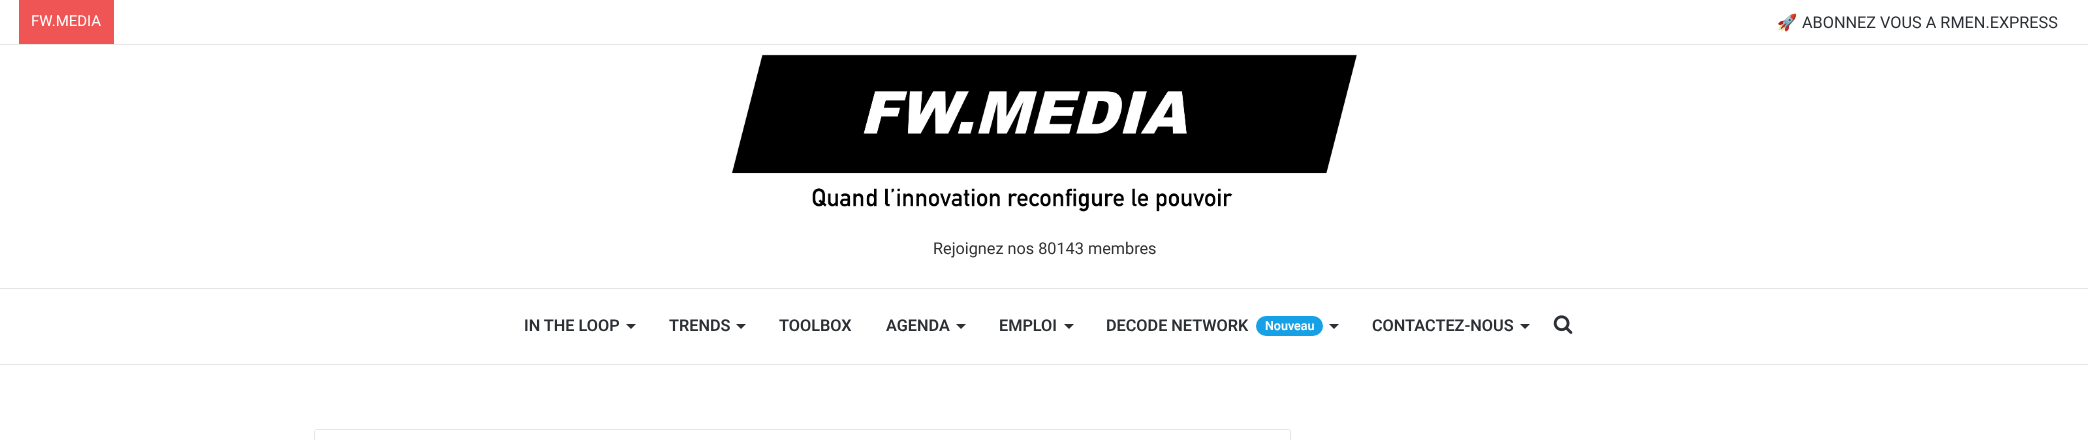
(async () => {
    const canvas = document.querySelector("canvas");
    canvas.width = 2088;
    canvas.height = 440;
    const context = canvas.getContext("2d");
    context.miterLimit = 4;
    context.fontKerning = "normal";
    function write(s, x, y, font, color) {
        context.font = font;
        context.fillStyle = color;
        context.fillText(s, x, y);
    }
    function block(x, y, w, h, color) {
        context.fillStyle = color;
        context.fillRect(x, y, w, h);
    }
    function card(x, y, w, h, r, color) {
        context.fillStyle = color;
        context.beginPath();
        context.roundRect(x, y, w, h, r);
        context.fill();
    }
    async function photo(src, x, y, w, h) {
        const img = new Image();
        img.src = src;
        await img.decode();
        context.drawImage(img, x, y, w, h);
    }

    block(0, 0, 2088, 440, "rgb(255, 255, 255)");
    block(0, 44, 2088, 1, "rgb(230, 230, 230)");
    block(19, 0, 95, 44, "rgb(240, 85, 85)");
    write("FW.MEDIA", 31, 26, "15px Roboto", "rgb(255, 255, 255)");
    write("🚀", 1777, 28, "16.25px Noto Color Emoji", "rgb(44, 47, 52)");
    write("ABONNEZ VOUS A RMEN.EXPRESS", 1802, 28, "16.25px Roboto", "rgb(44, 47, 52)");
    await photo("media/1.png", 731, 54, 626, 158);
    write("Rejoignez nos 80143 membres", 933, 254, "16.25px Roboto", "rgb(51, 51, 51)");
    block(0, 288, 2088, 1, "rgb(230, 230, 230)");
    block(0, 364, 2088, 1, "rgb(230, 230, 230)");
    write("IN THE LOOP", 524, 331, "600 16.25px Roboto", "rgb(44, 47, 52)");
    context.beginPath();
    context.moveTo(626, 324);
    context.lineTo(636, 324);
    context.lineTo(631, 329);
    context.closePath();
    context.fill();
    write("TRENDS", 669, 331, "600 16.25px Roboto", "rgb(44, 47, 52)");
    context.beginPath();
    context.moveTo(736, 324);
    context.lineTo(746, 324);
    context.lineTo(741, 329);
    context.closePath();
    context.fill();
    write("TOOLBOX", 779, 331, "600 16.25px Roboto", "rgb(44, 47, 52)");
    write("AGENDA", 886, 331, "600 16.25px Roboto", "rgb(44, 47, 52)");
    context.beginPath();
    context.moveTo(956, 324);
    context.lineTo(966, 324);
    context.lineTo(961, 329);
    context.closePath();
    context.fill();
    write("EMPLOI", 999, 331, "600 16.25px Roboto", "rgb(44, 47, 52)");
    context.beginPath();
    context.moveTo(1064, 324);
    context.lineTo(1074, 324);
    context.lineTo(1069, 329);
    context.closePath();
    context.fill();
    write("DECODE NETWORK", 1106, 331, "600 16.25px Roboto", "rgb(44, 47, 52)");
    card(1256, 316, 67, 20, 10, "rgb(22, 161, 231)");
    write("Nouveau", 1265, 330, "600 12.5px Roboto", "rgb(255, 255, 255)");
    context.fillStyle = "rgb(44, 47, 52)";
    context.beginPath();
    context.moveTo(1329, 324);
    context.lineTo(1339, 324);
    context.lineTo(1334, 329);
    context.closePath();
    context.fill();
    write("CONTACTEZ-NOUS", 1372, 331, "600 16.25px Roboto", "rgb(44, 47, 52)");
    context.beginPath();
    context.moveTo(1520, 324);
    context.lineTo(1530, 324);
    context.lineTo(1525, 329);
    context.closePath();
    context.fill();
    await photo("media/2.png", 1553, 315, 20, 19);
    context.beginPath();
    context.moveTo(316.5, 429.5);
    context.lineTo(1288.5, 429.5);
    context.bezierCurveTo(1289.5, 429.5, 1290.5, 430.5, 1290.5, 431.5);
    context.lineTo(1290.5, 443.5);
    context.lineTo(314.5, 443.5);
    context.lineTo(314.5, 431.5);
    context.bezierCurveTo(314.5, 430.5, 315.5, 429.5, 316.5, 429.5);
    context.closePath();
    context.strokeStyle = "rgb(230, 230, 230)";
    context.stroke();
})();
